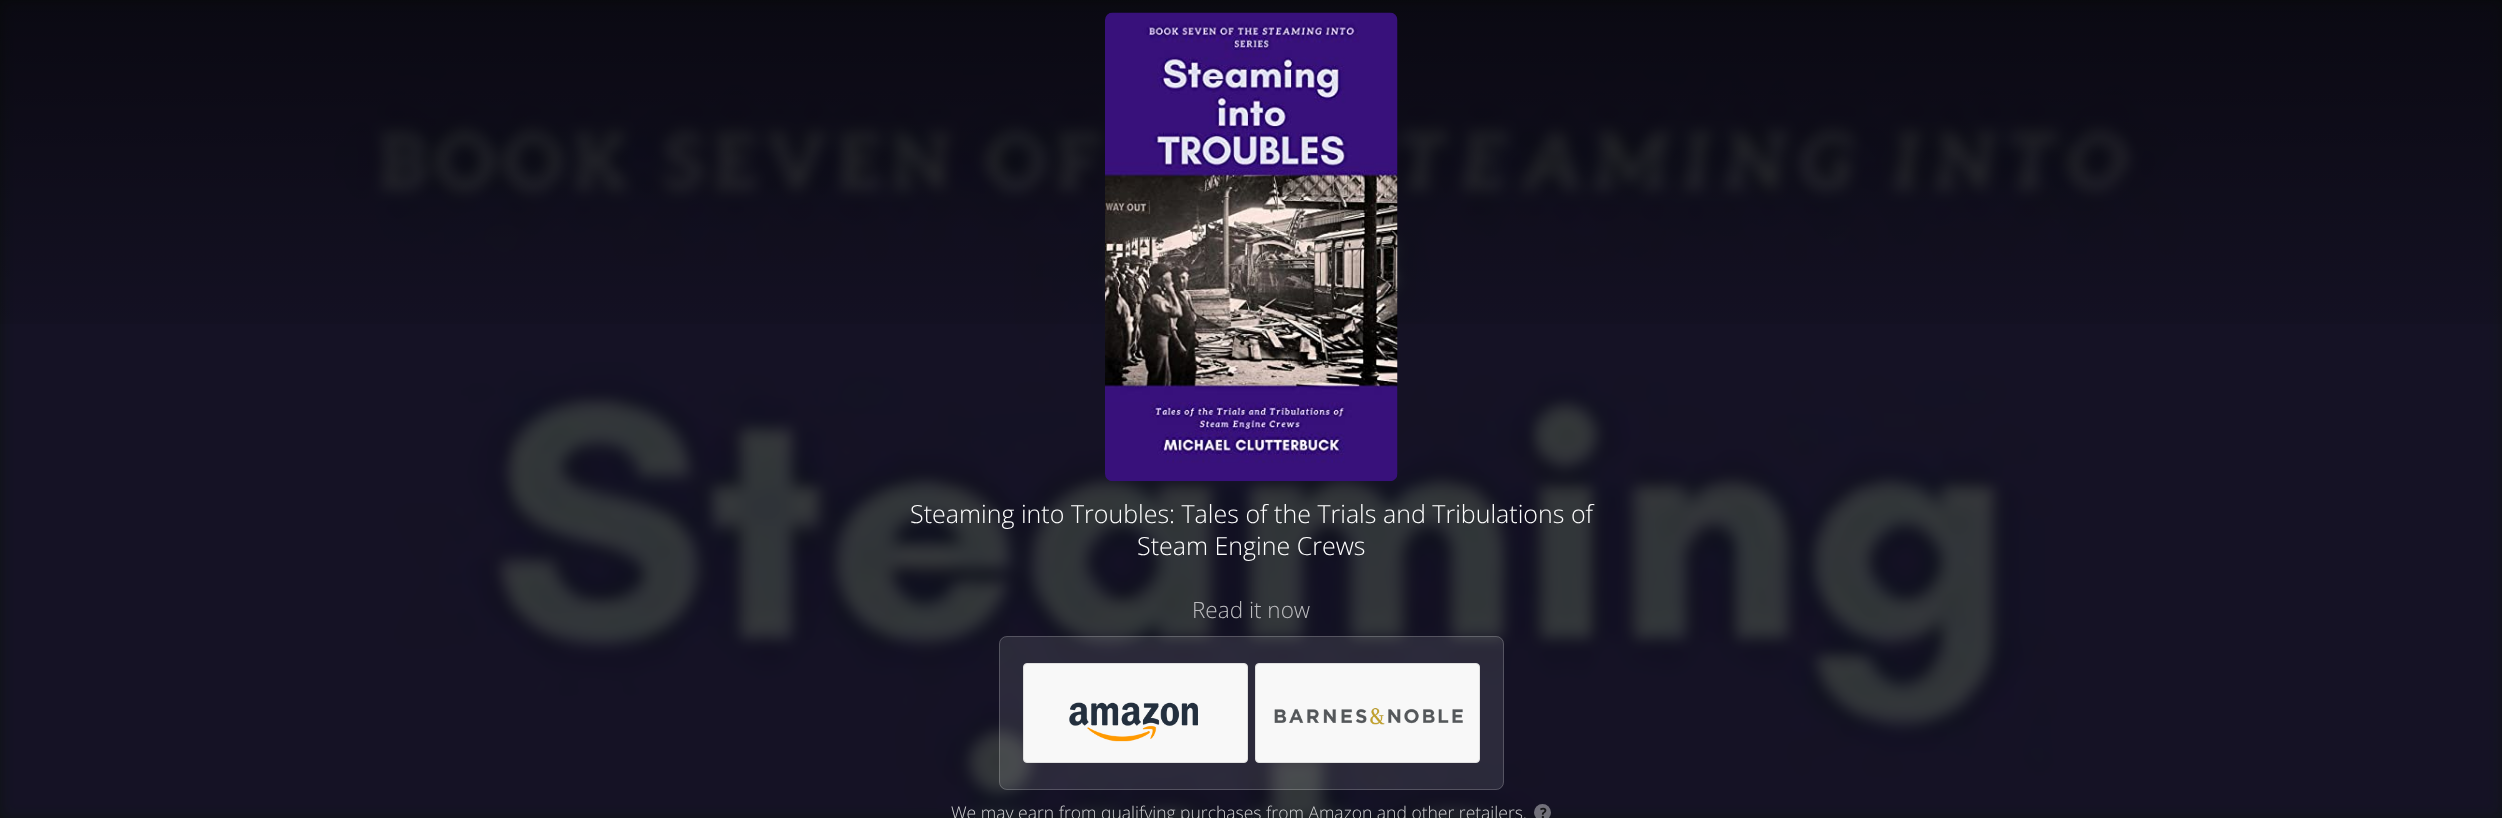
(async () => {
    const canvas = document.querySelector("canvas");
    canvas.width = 2502;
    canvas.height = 818;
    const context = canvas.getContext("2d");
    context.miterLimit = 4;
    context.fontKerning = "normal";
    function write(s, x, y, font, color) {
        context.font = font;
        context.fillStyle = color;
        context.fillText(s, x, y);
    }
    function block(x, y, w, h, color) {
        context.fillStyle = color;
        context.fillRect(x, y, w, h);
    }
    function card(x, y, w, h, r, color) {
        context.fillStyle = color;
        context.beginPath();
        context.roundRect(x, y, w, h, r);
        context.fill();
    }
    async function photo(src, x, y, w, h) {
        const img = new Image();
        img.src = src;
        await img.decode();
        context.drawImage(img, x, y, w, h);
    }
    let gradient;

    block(0, 0, 2502, 818, "rgb(15, 20, 21)");
    await photo("media/1.png", 0, 0, 2502, 818);
    gradient = context.createLinearGradient(1251, 0, 1251, 375);
    gradient.addColorStop(0, "rgba(0, 0, 0, 0.5)");
    gradient.addColorStop(1, "rgba(0, 0, 0, 0)");
    context.fillStyle = gradient;
    context.fillRect(0, 0, 2502, 324);
    await photo("media/2.png", 1105, 12, 293, 470);
    write("Steaming into Troubles: Tales of the Trials and Tribulations of", 910, 523, "300 25px Open Sans", "rgb(255, 255, 255)");
    write("Steam Engine Crews", 1137, 555, "300 25px Open Sans", "rgb(255, 255, 255)");
    write("Read it now", 1192, 618, "300 22.5px Open Sans", "rgb(190, 190, 193)");
    card(999, 636, 505, 154, 8, "rgba(255, 255, 255, 0.1)");
    context.beginPath();
    context.roundRect(999.5, 636.5, 504, 153, 7.5);
    context.strokeStyle = "rgba(255, 255, 255, 0.2)";
    context.stroke();
    context.fillStyle = "rgb(248, 248, 248)";
    context.beginPath();
    context.roundRect(1023.5, 663.5, 224, 99, 3.5);
    context.fill();
    context.strokeStyle = "rgb(224, 224, 224)";
    context.stroke();
    await photo("media/3.png", 1069, 702, 129, 40);
    context.beginPath();
    context.roundRect(1255.5, 663.5, 224, 99, 3.5);
    context.fill();
    context.stroke();
    await photo("media/4.png", 1274, 708, 189, 17);
    write("We may earn from qualifying purchases from Amazon and other retailers.", 951, 819, "300 17.5px Open Sans", "rgb(209, 209, 211)");
    context.fillStyle = "rgba(255, 255, 255, 0.4)";
    context.beginPath();
    context.arc(1542.5, 812.5, 8.5, 0, Math.PI * 2);
    context.fill();
    write("?", 1540, 818, "bold 14px Open Sans", "rgb(23, 23, 25)");
})();
